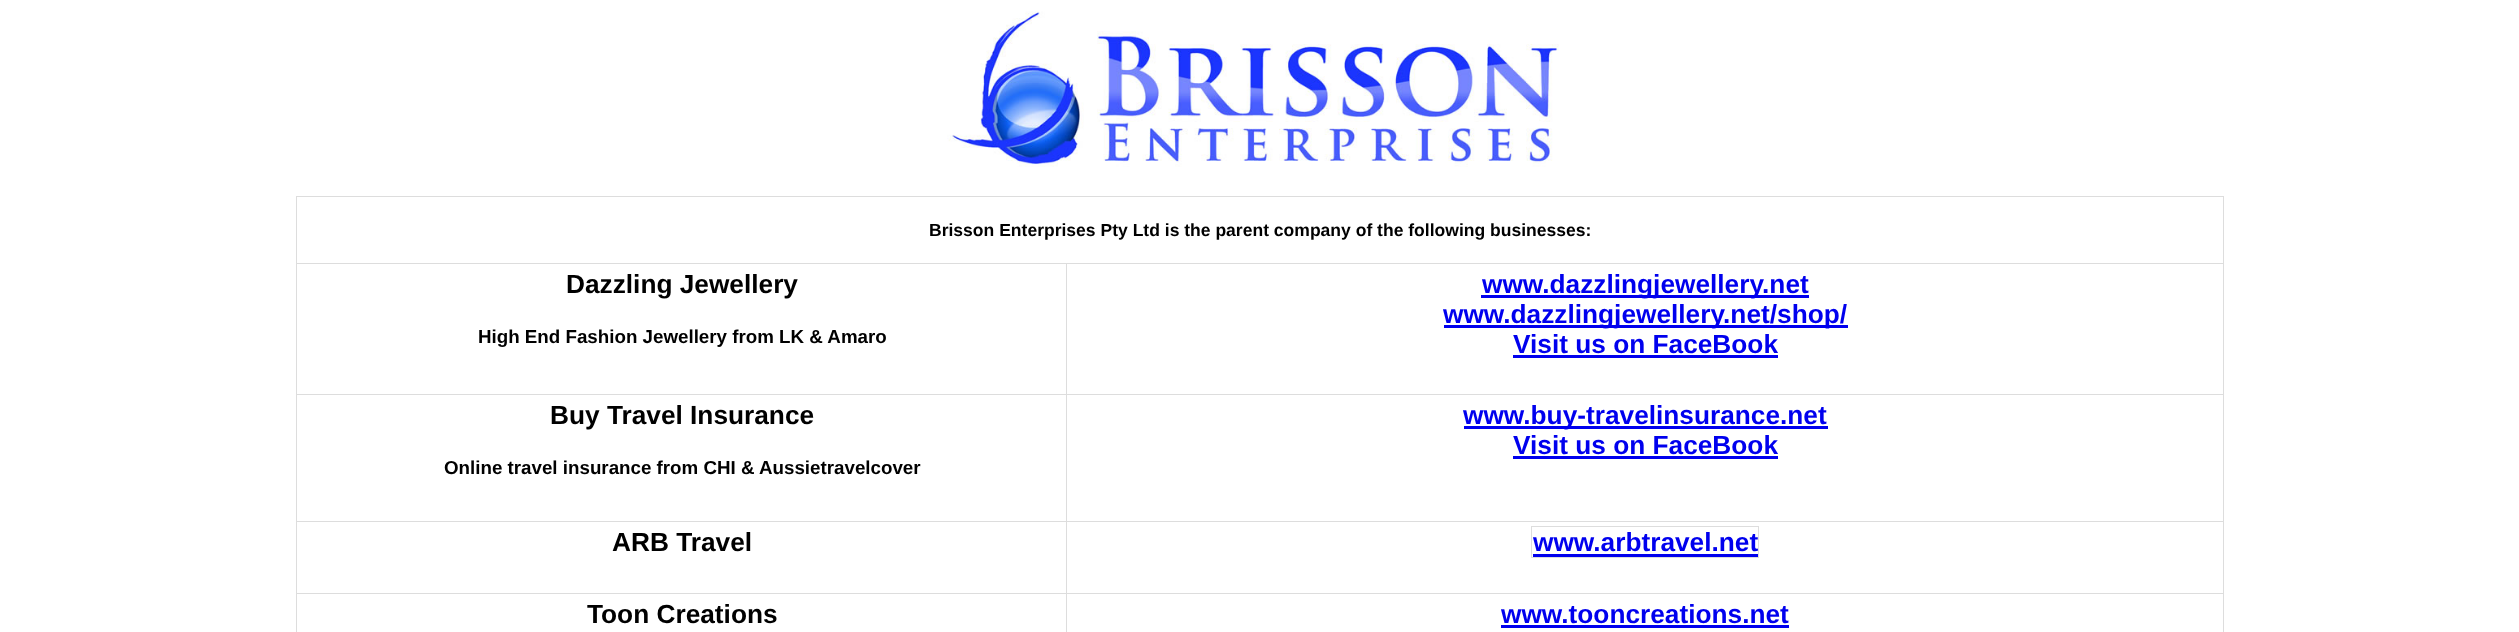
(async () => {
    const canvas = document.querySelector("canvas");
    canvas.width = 2519;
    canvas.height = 632;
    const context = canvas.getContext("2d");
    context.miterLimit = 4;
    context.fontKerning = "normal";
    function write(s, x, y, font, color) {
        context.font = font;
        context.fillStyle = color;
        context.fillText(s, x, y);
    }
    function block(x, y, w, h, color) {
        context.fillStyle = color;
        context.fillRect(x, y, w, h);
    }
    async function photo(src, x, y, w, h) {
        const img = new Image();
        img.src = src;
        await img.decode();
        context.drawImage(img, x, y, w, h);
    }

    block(0, 0, 2519, 632, "rgb(255, 255, 255)");
    await photo("media/1.png", 947, 11, 612, 156);
    block(296, 196, 1928, 1, "rgb(221, 221, 221)");
    block(2223, 196, 1, 436, "rgb(221, 221, 221)");
    block(296, 196, 1, 436, "rgb(221, 221, 221)");
    write("Brisson Enterprises Pty Ltd is the parent company of the following businesses:", 929, 236, "bold 17.55px Liberation Sans", "rgb(0, 0, 0)");
    block(296, 263, 1928, 1, "rgb(221, 221, 221)");
    write("Dazzling Jewellery", 566, 293, "bold 26.25px Liberation Sans", "rgb(0, 0, 0)");
    write("High End Fashion Jewellery from LK & Amaro", 478, 343, "bold 18.75px Liberation Sans", "rgb(0, 0, 0)");
    block(1481, 295, 328, 3, "rgb(0, 0, 238)");
    write("www.dazzlingjewellery.net", 1482, 293, "bold 26.25px Liberation Sans", "rgb(0, 0, 238)");
    block(1444, 325, 404, 3, "rgb(0, 0, 238)");
    write("www.dazzlingjewellery.net/shop/", 1443, 323, "bold 26.25px Liberation Sans", "rgb(0, 0, 238)");
    write("Visit us on FaceBook", 1513, 353, "bold 26.25px Liberation Sans", "rgb(0, 0, 238)");
    block(1513, 355, 265, 3, "rgb(0, 0, 238)");
    block(296, 394, 1928, 1, "rgb(221, 221, 221)");
    write("Buy Travel Insurance", 550, 424, "bold 26.25px Liberation Sans", "rgb(0, 0, 0)");
    write("Online travel insurance from CHI & Aussietravelcover", 444, 474, "bold 18.75px Liberation Sans", "rgb(0, 0, 0)");
    block(1464, 426, 364, 3, "rgb(0, 0, 238)");
    write("www.buy-travelinsurance.net", 1463, 424, "bold 26.25px Liberation Sans", "rgb(0, 0, 238)");
    write("Visit us on FaceBook", 1513, 454, "bold 26.25px Liberation Sans", "rgb(0, 0, 238)");
    block(1513, 456, 265, 3, "rgb(0, 0, 238)");
    block(296, 521, 1928, 1, "rgb(221, 221, 221)");
    write("ARB Travel", 612, 551, "bold 26.25px Liberation Sans", "rgb(0, 0, 0)");
    context.strokeStyle = "rgb(221, 221, 221)";
    context.strokeRect(1531.5, 526.5, 227, 31);
    write("www.arbtravel.net", 1533, 551, "bold 26.25px Liberation Sans", "rgb(0, 0, 238)");
    block(1533, 554, 225, 3, "rgb(0, 0, 238)");
    block(296, 593, 1928, 1, "rgb(221, 221, 221)");
    write("Toon Creations", 587, 623, "bold 26.25px Liberation Sans", "rgb(0, 0, 0)");
    block(1066, 263, 1, 369, "rgb(221, 221, 221)");
    write("www.tooncreations.net", 1501, 623, "bold 26.25px Liberation Sans", "rgb(0, 0, 238)");
    block(1501, 625, 288, 3, "rgb(0, 0, 238)");
})();
